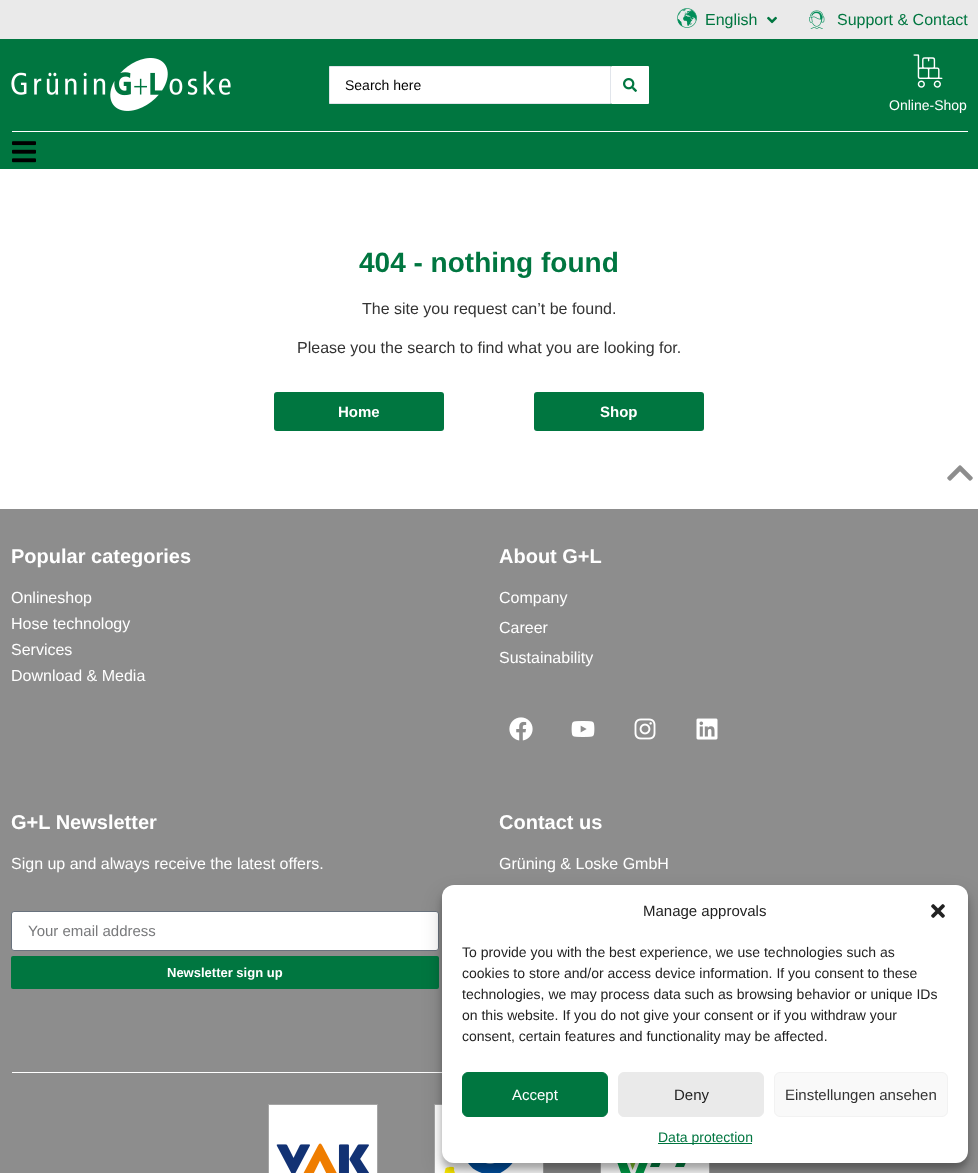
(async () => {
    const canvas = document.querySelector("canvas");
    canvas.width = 978;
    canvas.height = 1173;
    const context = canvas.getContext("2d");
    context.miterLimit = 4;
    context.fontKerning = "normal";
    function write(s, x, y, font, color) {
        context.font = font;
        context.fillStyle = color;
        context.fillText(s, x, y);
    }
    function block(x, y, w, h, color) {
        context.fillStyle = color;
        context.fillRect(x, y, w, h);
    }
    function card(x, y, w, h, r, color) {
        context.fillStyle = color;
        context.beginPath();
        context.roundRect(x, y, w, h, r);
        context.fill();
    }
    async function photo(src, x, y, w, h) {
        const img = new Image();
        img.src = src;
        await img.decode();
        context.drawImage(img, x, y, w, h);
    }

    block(0, 0, 978, 1173, "rgb(255, 255, 255)");
    block(0, 0, 978, 39, "rgb(234, 234, 234)");
    await photo("media/1.png", 677, 8, 20, 20);
    write("English", 705, 25, "16px Liberation Sans", "rgb(0, 118, 64)");
    await photo("media/2.png", 767, 16, 10, 8);
    await photo("media/3.png", 809, 10, 16, 19);
    write("Support & Contact", 837, 25, "16px Liberation Sans", "rgb(0, 118, 64)");
    block(0, 39, 978, 130, "rgb(0, 118, 64)");
    await photo("media/4.png", 11, 58, 220, 53);
    context.fillStyle = "rgb(255, 255, 255)";
    context.beginPath();
    context.rect(329.5, 66.5, 281, 37);
    context.fill();
    context.strokeStyle = "rgb(225, 229, 235)";
    context.stroke();
    write("Search here", 345, 90, "14px Liberation Sans", "rgb(0, 0, 0)");
    card(611, 66, 38, 38, 1, "rgb(255, 255, 255)");
    await photo("media/5.png", 623, 78, 14, 14);
    await photo("media/6.png", 913, 54, 30, 34);
    write("Online-Shop", 889, 110, "14px Liberation Sans", "rgb(255, 255, 255)");
    block(12, 131, 956, 1, "rgb(255, 255, 255)");
    await photo("media/7.png", 12, 141, 24, 22);
    write("404 - nothing found", 359, 272, "bold 28px Liberation Sans", "rgb(0, 118, 64)");
    write("The site you request can’t be found.", 362, 314, "16px Liberation Sans", "rgb(51, 51, 51)");
    write("Please you the search to find what you are looking for.", 297, 353, "16px Liberation Sans", "rgb(51, 51, 51)");
    card(274, 392, 170, 39, 3, "rgb(0, 118, 64)");
    write("Home", 338, 417, "bold 15px Liberation Sans", "rgb(255, 255, 255)");
    card(534, 392, 170, 39, 3, "rgb(0, 118, 64)");
    write("Shop", 600, 417, "bold 15px Liberation Sans", "rgb(255, 255, 255)");
    block(0, 509, 978, 664, "rgb(141, 141, 141)");
    await photo("media/8.png", 947, 465, 26, 16);
    write("Popular categories", 11, 563, "bold 20px Liberation Sans", "rgb(255, 255, 255)");
    write("Onlineshop", 11, 603, "16px Liberation Sans", "rgb(255, 255, 255)");
    write("Hose technology", 11, 629, "16px Liberation Sans", "rgb(255, 255, 255)");
    write("Services", 11, 655, "16px Liberation Sans", "rgb(255, 255, 255)");
    write("Download & Media", 11, 681, "16px Liberation Sans", "rgb(255, 255, 255)");
    write("About G+L", 499, 563, "bold 20px Liberation Sans", "rgb(255, 255, 255)");
    write("Company", 499, 603, "16px Liberation Sans", "rgb(255, 255, 255)");
    write("Career", 499, 633, "16px Liberation Sans", "rgb(255, 255, 255)");
    write("Sustainability", 499, 663, "16px Liberation Sans", "rgb(255, 255, 255)");
    await photo("media/9.png", 509, 717, 24, 24);
    await photo("media/10.png", 571, 721, 24, 16);
    await photo("media/11.png", 634, 718, 22, 22);
    await photo("media/12.png", 696, 718, 22, 22);
    write("G+L Newsletter", 11, 829, "bold 20px Liberation Sans", "rgb(255, 255, 255)");
    write("Sign up and always receive the latest offers.", 11, 869, "16px Liberation Sans", "rgb(255, 255, 255)");
    context.beginPath();
    context.roundRect(11.5, 911.5, 427, 39, 2.5);
    context.fill();
    context.strokeStyle = "rgb(105, 114, 125)";
    context.stroke();
    write("Your email address", 28, 936, "15px Liberation Sans", "rgb(121, 122, 124)");
    card(11, 956, 428, 33, 2, "rgb(0, 118, 64)");
    write("Newsletter sign up", 167, 977, "bold 13px Liberation Sans", "rgb(255, 255, 255)");
    write("Contact us", 499, 829, "bold 20px Liberation Sans", "rgb(255, 255, 255)");
    write("Grüning & Loske GmbH", 499, 869, "16px Liberation Sans", "rgb(255, 255, 255)");
    block(12, 1072, 430, 1, "rgb(255, 255, 255)");
    context.strokeStyle = "rgb(165, 165, 165)";
    context.strokeRect(268.5, 1104.5, 109, 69);
    await photo("media/13.png", 269, 1105, 108, 68);
    context.strokeRect(434.5, 1104.5, 109, 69);
    await photo("media/14.png", 435, 1105, 108, 68);
    context.strokeRect(600.5, 1104.5, 109, 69);
    block(601, 1163, 108, 10, "rgb(255, 255, 255)");
    context.fillStyle = "rgb(1, 121, 61)";
    context.beginPath();
    context.moveTo(664, 1131);
    context.lineTo(650, 1167);
    context.lineTo(659, 1167);
    context.lineTo(673, 1131);
    context.closePath();
    context.moveTo(699, 1131);
    context.lineTo(684, 1167);
    context.lineTo(675, 1167);
    context.lineTo(681, 1153);
    context.lineTo(668, 1153);
    context.lineTo(671, 1145);
    context.lineTo(685, 1145);
    context.lineTo(690, 1131);
    context.closePath();
    context.fill();
    context.fillStyle = "rgb(0, 156, 72)";
    context.beginPath();
    context.moveTo(646, 1145);
    context.lineTo(633, 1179);
    context.lineTo(620, 1145);
    context.lineTo(611, 1145);
    context.lineTo(626, 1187);
    context.lineTo(638, 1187);
    context.lineTo(655, 1145);
    context.closePath();
    context.fill();
    context.fillStyle = "rgb(122, 185, 41)";
    context.beginPath();
    context.moveTo(628.5, 1158);
    context.lineTo(632.5, 1170);
    context.lineTo(645, 1139.5);
    context.lineTo(657.5, 1139.5);
    context.lineTo(661, 1131);
    context.lineTo(626, 1131);
    context.lineTo(622.5, 1139.5);
    context.lineTo(636, 1139.5);
    context.closePath();
    context.fill();
    context.fillStyle = "rgba(0, 0, 0, 0.23)";
    context.filter = "blur(3px)";
    context.beginPath();
    context.roundRect(442, 891, 526, 278, 12);
    context.fill();
    context.filter = "none";
    context.fillStyle = "rgba(0, 0, 0, 0.19)";
    context.filter = "blur(10px)";
    context.beginPath();
    context.roundRect(442, 895, 526, 278, 12);
    context.fill();
    context.filter = "none";
    card(442, 885, 526, 278, 12, "rgb(255, 255, 255)");
    write("Manage approvals", 643, 916, "15px Liberation Sans", "rgb(34, 34, 34)");
    await photo("media/15.png", 931, 904, 14, 14);
    write("To provide you with the best experience, we use technologies such as", 462, 957, "14px Liberation Sans", "rgb(34, 34, 34)");
    write("cookies to store and/or access device information. If you consent to these", 462, 978, "14px Liberation Sans", "rgb(34, 34, 34)");
    write("technologies, we may process data such as browsing behavior or unique IDs", 462, 999, "14px Liberation Sans", "rgb(34, 34, 34)");
    write("on this website. If you do not give your consent or if you withdraw your", 462, 1020, "14px Liberation Sans", "rgb(34, 34, 34)");
    write("consent, certain features and functionality may be affected.", 462, 1041, "14px Liberation Sans", "rgb(34, 34, 34)");
    context.fillStyle = "rgb(0, 118, 64)";
    context.beginPath();
    context.roundRect(462.5, 1072.5, 145, 44, 5.5);
    context.fill();
    context.strokeStyle = "rgb(0, 118, 64)";
    context.stroke();
    write("Accept", 512, 1100, "15px Liberation Sans", "rgb(255, 255, 255)");
    context.fillStyle = "rgb(234, 234, 234)";
    context.beginPath();
    context.roundRect(618.5, 1072.5, 145, 44, 5.5);
    context.fill();
    context.strokeStyle = "rgb(234, 234, 234)";
    context.stroke();
    write("Deny", 674, 1100, "15px Liberation Sans", "rgb(34, 34, 34)");
    context.fillStyle = "rgb(249, 249, 249)";
    context.beginPath();
    context.roundRect(774.5, 1072.5, 173, 44, 5.5);
    context.fill();
    context.strokeStyle = "rgb(242, 242, 242)";
    context.stroke();
    write("Einstellungen ansehen", 785, 1100, "15px Liberation Sans", "rgb(51, 51, 51)");
    block(658, 1143, 94, 1, "rgb(0, 118, 64)");
    write("Data protection", 658, 1142, "14px Liberation Sans", "rgb(0, 118, 64)");
})();
